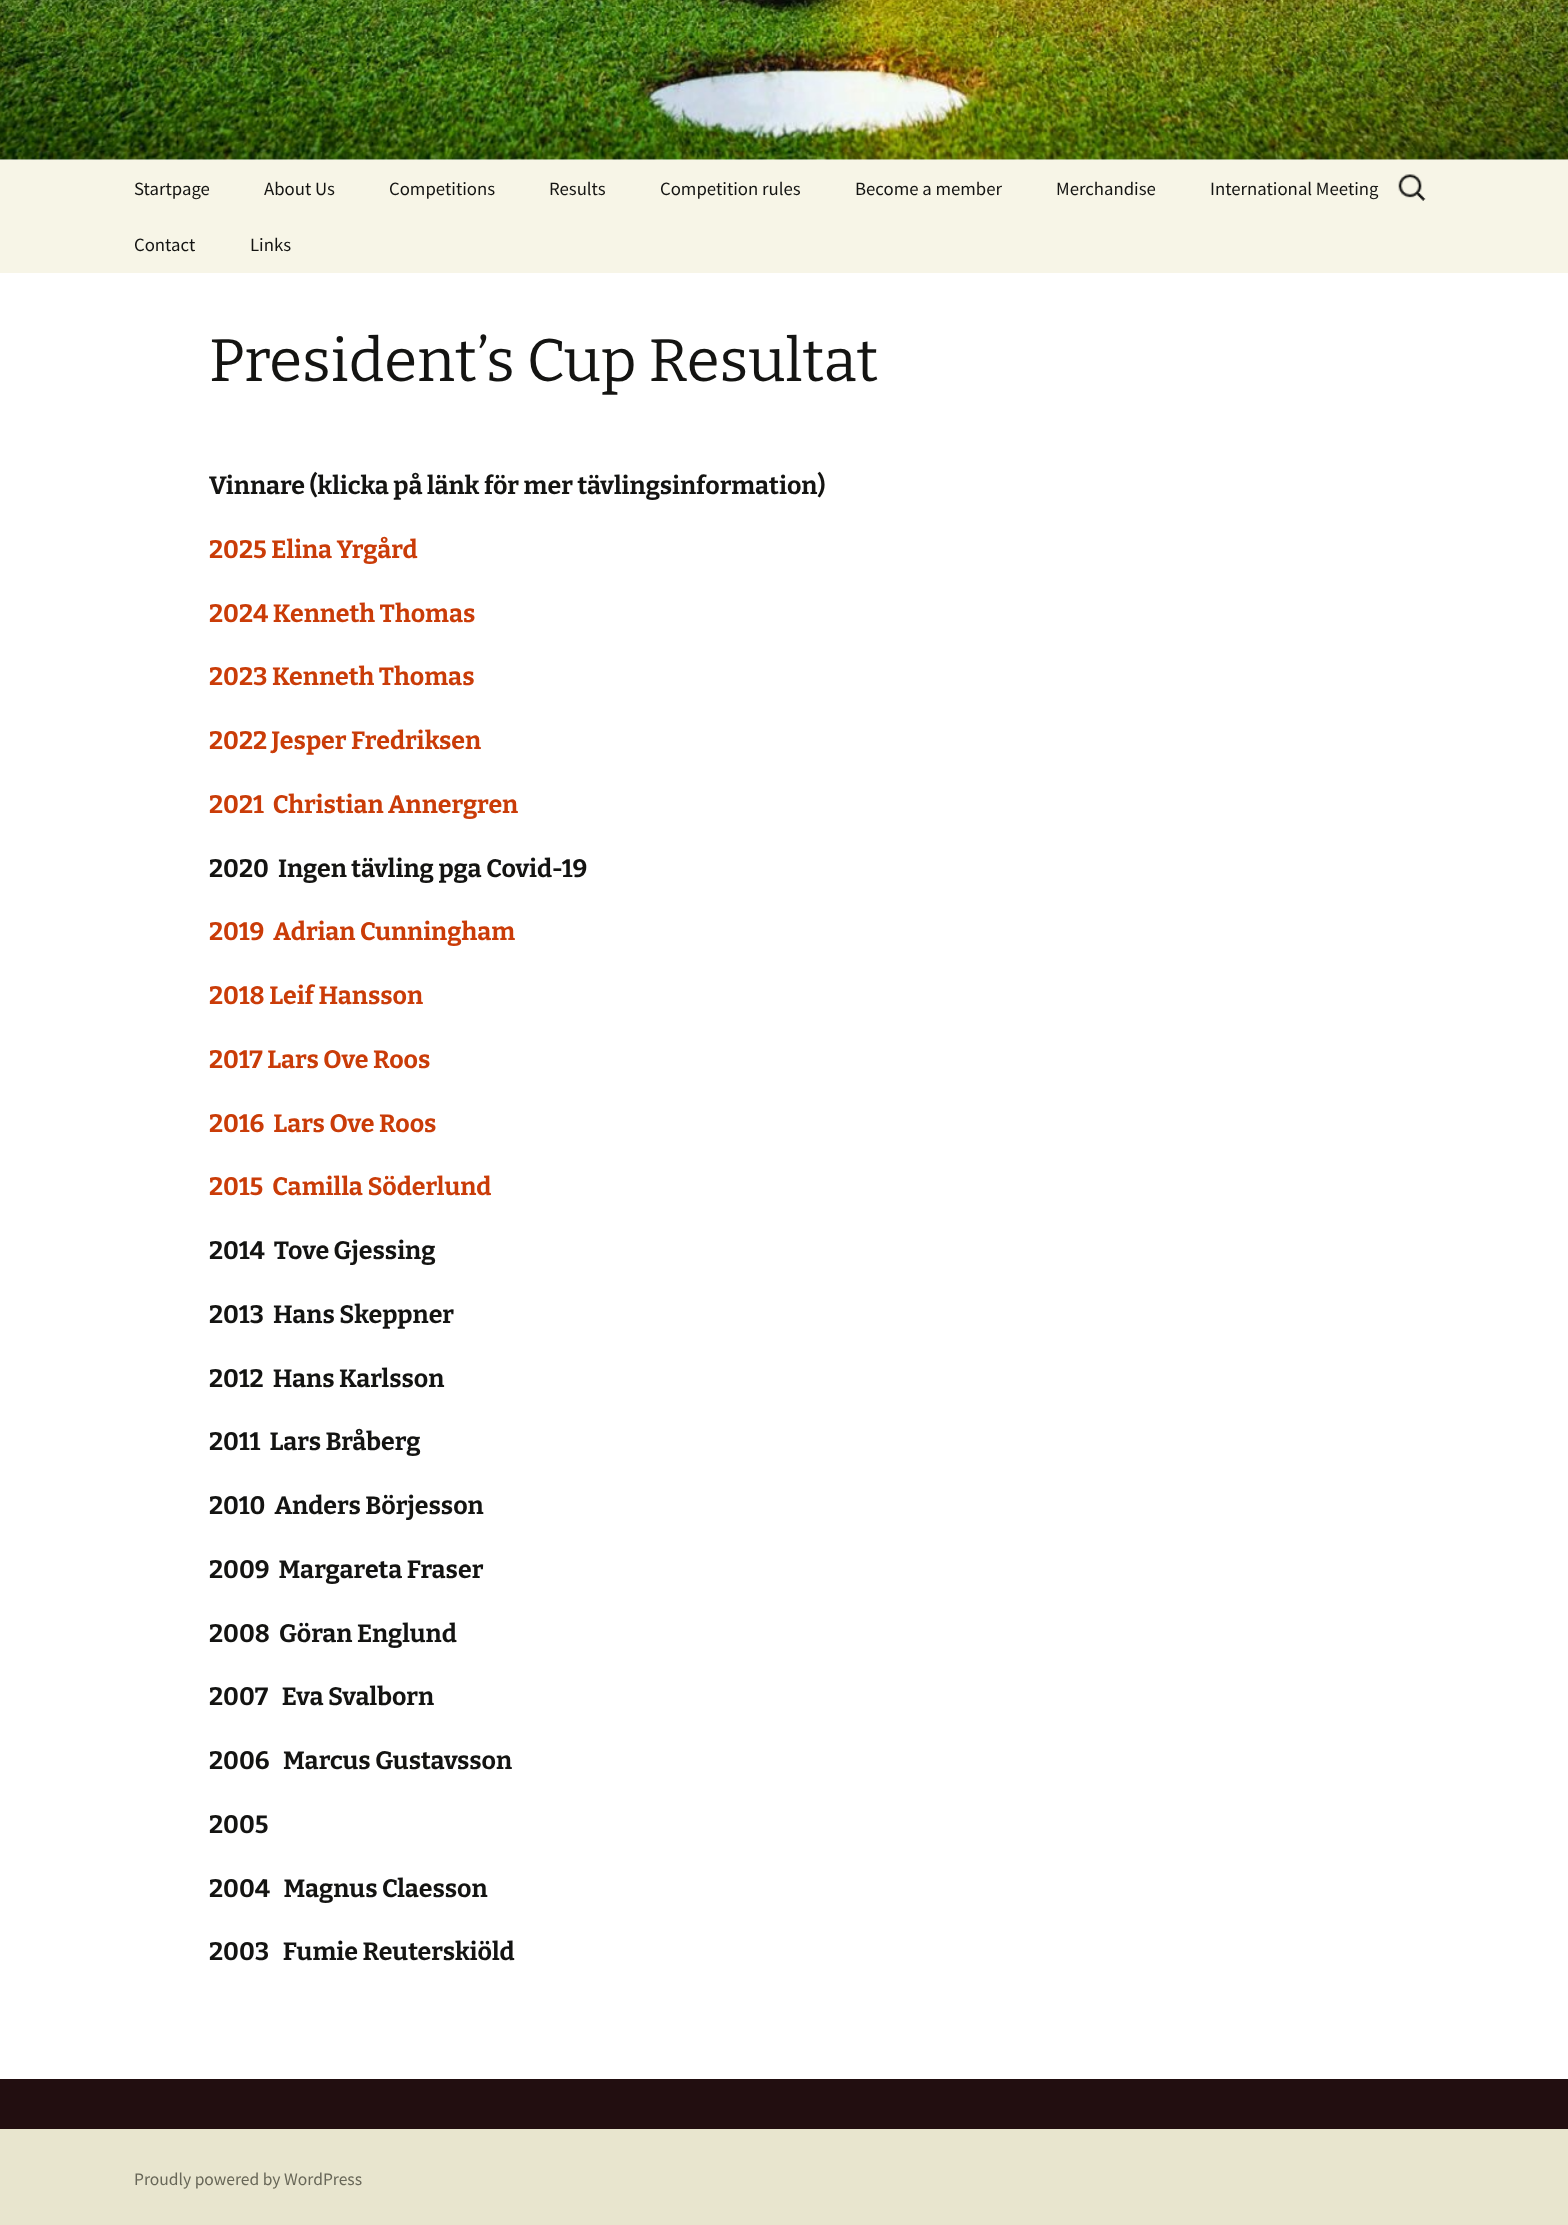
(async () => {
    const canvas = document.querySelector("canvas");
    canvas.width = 1568;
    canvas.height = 2225;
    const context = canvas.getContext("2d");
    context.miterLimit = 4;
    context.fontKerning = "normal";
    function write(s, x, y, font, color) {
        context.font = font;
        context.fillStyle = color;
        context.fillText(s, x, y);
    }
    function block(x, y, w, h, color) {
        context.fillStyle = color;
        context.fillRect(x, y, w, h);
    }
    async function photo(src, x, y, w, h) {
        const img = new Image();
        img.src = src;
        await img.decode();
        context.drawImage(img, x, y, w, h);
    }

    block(0, 0, 1568, 2225, "rgb(255, 255, 255)");
    await photo("media/1.png", 0, 0, 1568, 160);
    block(0, 160, 1568, 113, "rgb(247, 245, 231)");
    write("Startpage", 134, 195, "18.75px Source Sans Pro", "rgb(20, 20, 18)");
    write("About Us", 264, 195, "18.75px Source Sans Pro", "rgb(20, 20, 18)");
    write("Competitions", 389, 195, "18.75px Source Sans Pro", "rgb(20, 20, 18)");
    write("Results", 549, 195, "18.75px Source Sans Pro", "rgb(20, 20, 18)");
    write("Competition rules", 660, 195, "18.75px Source Sans Pro", "rgb(20, 20, 18)");
    write("Become a member", 855, 195, "18.75px Source Sans Pro", "rgb(20, 20, 18)");
    write("Merchandise", 1056, 195, "18.75px Source Sans Pro", "rgb(20, 20, 18)");
    write("International Meeting", 1210, 195, "18.75px Source Sans Pro", "rgb(20, 20, 18)");
    write("Contact", 134, 251, "18.75px Source Sans Pro", "rgb(20, 20, 18)");
    write("Links", 250, 251, "18.75px Source Sans Pro", "rgb(20, 20, 18)");
    await photo("media/2.png", 1398, 174, 28, 27);
    write("President’s Cup Resultat", 209, 381, "100 60px Bitter", "rgb(20, 20, 18)");
    write("Vinnare (klicka på länk för mer tävlingsinformation)", 209, 494, "100 25px 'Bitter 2'", "rgb(20, 20, 18)");
    write("2025 Elina Yrgård", 209, 558, "100 25px 'Bitter 2'", "rgb(202, 60, 8)");
    write("2024 Kenneth Thomas", 209, 622, "100 25px 'Bitter 2'", "rgb(202, 60, 8)");
    write("2023 Kenneth Thomas", 209, 685, "100 25px 'Bitter 2'", "rgb(202, 60, 8)");
    write("2022 Jesper Fredriksen", 209, 749, "100 25px 'Bitter 2'", "rgb(202, 60, 8)");
    write("2021  Christian Annergren", 209, 813, "100 25px 'Bitter 2'", "rgb(202, 60, 8)");
    write("2020  Ingen tävling pga Covid-19", 209, 877, "100 25px 'Bitter 2'", "rgb(20, 20, 18)");
    write("2019  Adrian Cunningham", 209, 940, "100 25px 'Bitter 2'", "rgb(202, 60, 8)");
    write("2018 Leif Hansson", 209, 1004, "100 25px 'Bitter 2'", "rgb(202, 60, 8)");
    write("2017 Lars Ove Roos", 209, 1068, "100 25px 'Bitter 2'", "rgb(202, 60, 8)");
    write("2016  Lars Ove Roos", 209, 1132, "100 25px 'Bitter 2'", "rgb(202, 60, 8)");
    write("2015  Camilla Söderlund", 209, 1195, "100 25px 'Bitter 2'", "rgb(202, 60, 8)");
    write("2014  Tove Gjessing", 209, 1259, "100 25px 'Bitter 2'", "rgb(20, 20, 18)");
    write("2013  Hans Skeppner", 209, 1323, "100 25px 'Bitter 2'", "rgb(20, 20, 18)");
    write("2012  Hans Karlsson", 209, 1387, "100 25px 'Bitter 2'", "rgb(20, 20, 18)");
    write("2011  Lars Bråberg", 209, 1450, "100 25px 'Bitter 2'", "rgb(20, 20, 18)");
    write("2010  Anders Börjesson", 209, 1514, "100 25px 'Bitter 2'", "rgb(20, 20, 18)");
    write("2009  Margareta Fraser", 209, 1578, "100 25px 'Bitter 2'", "rgb(20, 20, 18)");
    write("2008  Göran Englund", 209, 1642, "100 25px 'Bitter 2'", "rgb(20, 20, 18)");
    write("2007   Eva Svalborn", 209, 1705, "100 25px 'Bitter 2'", "rgb(20, 20, 18)");
    write("2006   Marcus Gustavsson", 209, 1769, "100 25px 'Bitter 2'", "rgb(20, 20, 18)");
    write("2005", 209, 1833, "100 25px 'Bitter 2'", "rgb(20, 20, 18)");
    write("2004   Magnus Claesson", 209, 1897, "100 25px 'Bitter 2'", "rgb(20, 20, 18)");
    write("2003   Fumie Reuterskiöld", 209, 1960, "100 25px 'Bitter 2'", "rgb(20, 20, 18)");
    block(0, 2129, 1568, 96, "rgb(232, 229, 206)");
    block(0, 2079, 1568, 50, "rgb(34, 14, 16)");
    write("Proudly powered by WordPress", 134, 2185, "17.5px Source Sans Pro", "rgb(104, 103, 88)");
})();
